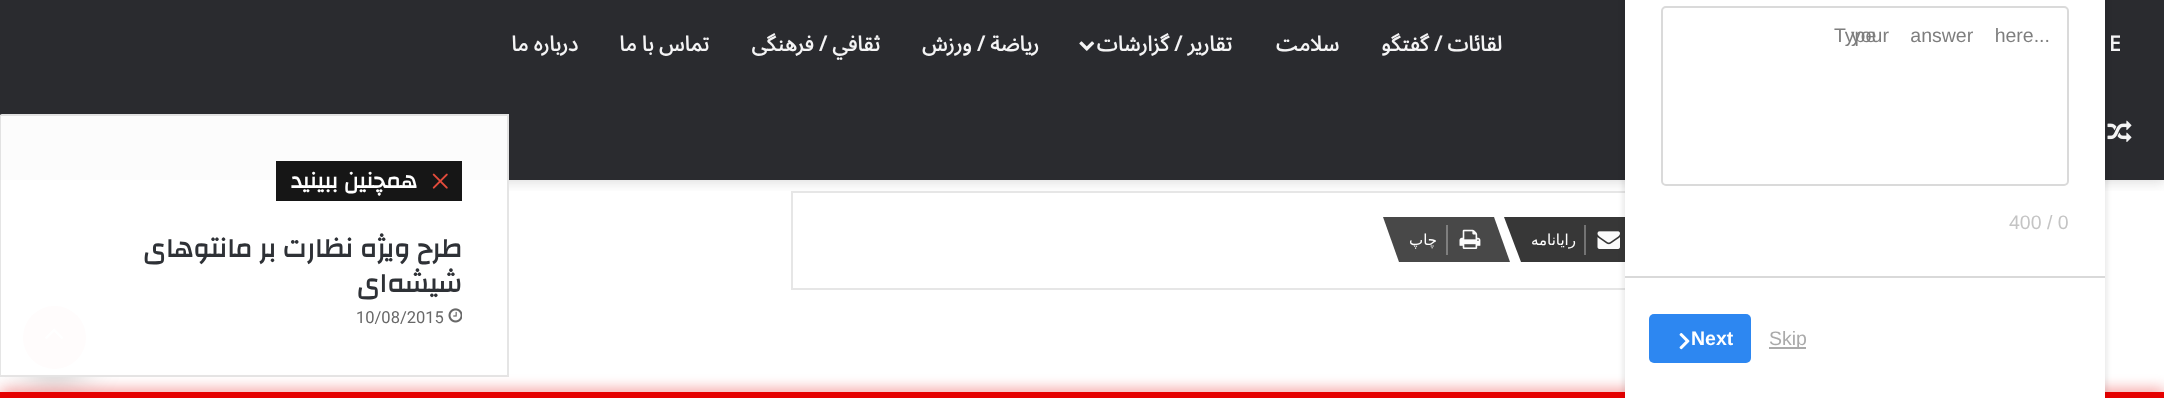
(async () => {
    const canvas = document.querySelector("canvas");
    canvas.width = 2164;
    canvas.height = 398;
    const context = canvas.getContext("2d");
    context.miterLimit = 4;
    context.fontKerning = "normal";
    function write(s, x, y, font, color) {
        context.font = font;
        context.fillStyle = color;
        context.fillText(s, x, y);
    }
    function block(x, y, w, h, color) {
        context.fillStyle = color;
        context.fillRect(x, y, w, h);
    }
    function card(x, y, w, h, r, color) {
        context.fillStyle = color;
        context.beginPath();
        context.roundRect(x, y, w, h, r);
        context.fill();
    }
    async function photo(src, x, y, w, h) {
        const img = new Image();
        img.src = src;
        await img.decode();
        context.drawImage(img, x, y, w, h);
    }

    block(0, 0, 2164, 398, "rgb(255, 255, 255)");
    context.strokeStyle = "rgb(230, 230, 230)";
    context.lineWidth = 2;
    context.strokeRect(792, 192, 1168, 97);
    context.save();
    context.beginPath();
    context.rect(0, 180, 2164, 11);
    context.clip();
    context.fillStyle = "rgba(99, 99, 99, 0.2)";
    context.filter = "blur(6px)";
    context.beginPath();
    context.rect(0, 3, 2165, 180);
    context.fill();
    context.filter = "none";
    context.restore();
    block(0, 0, 2164, 180, "rgba(31, 32, 36, 0.95)");
    await photo("media/3.png", 2107, 120, 25, 22);
    context.fillStyle = "rgb(55, 55, 55)";
    context.beginPath();
    context.moveTo(1504, 217);
    context.lineTo(1632, 217);
    context.lineTo(1648, 262);
    context.lineTo(1521, 262);
    context.closePath();
    context.fill();
    await photo("media/4.png", 1597, 231, 23, 18);
    context.fillStyle = "rgba(0, 0, 0, 0.3)";
    context.filter = "blur(19px)";
    context.beginPath();
    context.roundRect(23, 314, 63, 63, 31.5);
    context.fill();
    context.filter = "none";
    context.fillStyle = "rgb(229, 0, 0)";
    context.beginPath();
    context.arc(54.5, 337.5, 31.5, 0, Math.PI * 2);
    context.fill();
    await photo("media/8.png", 44, 328, 20, 12);
    context.fillStyle = "rgba(255, 255, 255, 0.99)";
    context.beginPath();
    context.moveTo(2, 114);
    context.lineTo(509, 114);
    context.lineTo(509, 377);
    context.lineTo(2, 377);
    context.bezierCurveTo(0.5, 377, -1, 375.5, -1, 374);
    context.lineTo(-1, 117);
    context.bezierCurveTo(-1, 115.5, 0.5, 114, 2, 114);
    context.closePath();
    context.fill();
    context.strokeStyle = "rgba(0, 0, 0, 0.1)";
    context.strokeRect(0, 115, 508, 261);
    context.fillStyle = "rgba(229, 0, 0, 0.7)";
    context.filter = "blur(7.5px)";
    context.beginPath();
    context.rect(0, 392, 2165, 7);
    context.fill();
    context.filter = "none";
    block(0, 392, 2164, 6, "rgb(229, 0, 0)");
    context.fillStyle = "rgba(0, 0, 0, 0.07)";
    context.filter = "blur(2px)";
    context.beginPath();
    context.roundRect(1622, -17, 486, 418, 11);
    context.fill();
    context.filter = "none";
    block(1625, 0, 480, 398, "rgb(255, 255, 255)");
    block(1625, 276, 480, 2, "rgb(217, 217, 217)");
    context.beginPath();
    context.roundRect(1662, 7, 406, 178, 4);
    context.strokeStyle = "rgb(218, 218, 218)";
    context.stroke();
    write("Type", 1834, 42, "19.5px Liberation Sans", "rgb(126, 126, 126)");
    context.wordSpacing = "16px";
    write("your answer here...", 1851, 42, "19.5px Liberation Sans", "rgb(126, 126, 126)");
    context.wordSpacing = "0px";
    write("400 / 0", 2009, 229, "19.5px Liberation Sans", "rgb(196, 196, 196)");
    block(1769, 347, 37, 2, "rgb(170, 170, 170)");
    write("Skip", 1769, 345, "19.5px Liberation Sans", "rgb(170, 170, 170)");
    card(1649, 314, 102, 49, 5, "rgb(45, 135, 241)");
    write("Next", 1691, 345, "bold 19.5px Liberation Sans", "rgb(255, 255, 255)");
    await photo("media/1.png", 1679, 333, 11, 17);
    write("E", 2109, 51, "bold 21px Noto Sans Arabic", "rgb(244, 244, 245)");
    context.direction = "rtl";
    write("لقائات / گفتگو", 1502, 51, "bold 21px Noto Sans Arabic", "rgb(244, 244, 245)");
    write("سلامت", 1339, 51, "bold 21px Noto Sans Arabic", "rgb(244, 244, 245)");
    write("تقاریر / گزارشات", 1232, 51, "bold 21px Noto Sans Arabic", "rgb(244, 244, 245)");
    await photo("media/2.png", 1079, 41, 16, 10);
    write("ریاضة / ورزش", 1039, 51, "bold 21px Noto Sans Arabic", "rgb(244, 244, 245)");
    write("ثقافي / فرهنگی", 880, 51, "bold 21px Noto Sans Arabic", "rgb(244, 244, 245)");
    write("تماس با ما", 709, 51, "bold 21px Noto Sans Arabic", "rgb(244, 244, 245)");
    write("درباره ما", 578, 51, "bold 21px Noto Sans Arabic", "rgb(244, 244, 245)");
    block(1584, 225, 2, 30, "rgb(115, 115, 115)");
    write("رایانامه", 1576, 245, "15px DejaVu Sans", "rgb(255, 255, 255)");
    context.fillStyle = "rgb(72, 72, 72)";
    context.beginPath();
    context.moveTo(1383, 217);
    context.lineTo(1494, 217);
    context.lineTo(1510, 262);
    context.lineTo(1399, 262);
    context.closePath();
    context.fill();
    await photo("media/5.png", 1459, 229, 22, 20);
    block(1446, 225, 2, 30, "rgb(127, 127, 127)");
    write("چاپ", 1437, 245, "15px DejaVu Sans", "rgb(255, 255, 255)");
    block(276, 161, 186, 40, "rgb(22, 22, 22)");
    await photo("media/6.png", 432, 173, 16, 16);
    write("همچنین ببینید", 417, 188, "bold 22.5px Changa", "rgb(255, 255, 255)");
    write("طرح ویژه نظارت بر مانتوهای", 462, 257, "bold 27px Changa", "rgb(46, 49, 54)");
    write("شیشه‌ای", 462, 292, "bold 27px Changa", "rgb(46, 49, 54)");
    await photo("media/7.png", 448, 308, 14, 15);
    context.direction = "ltr";
    write("10/08/2015", 356, 323, "16.5px Roboto", "rgb(104, 104, 104)");
})();
